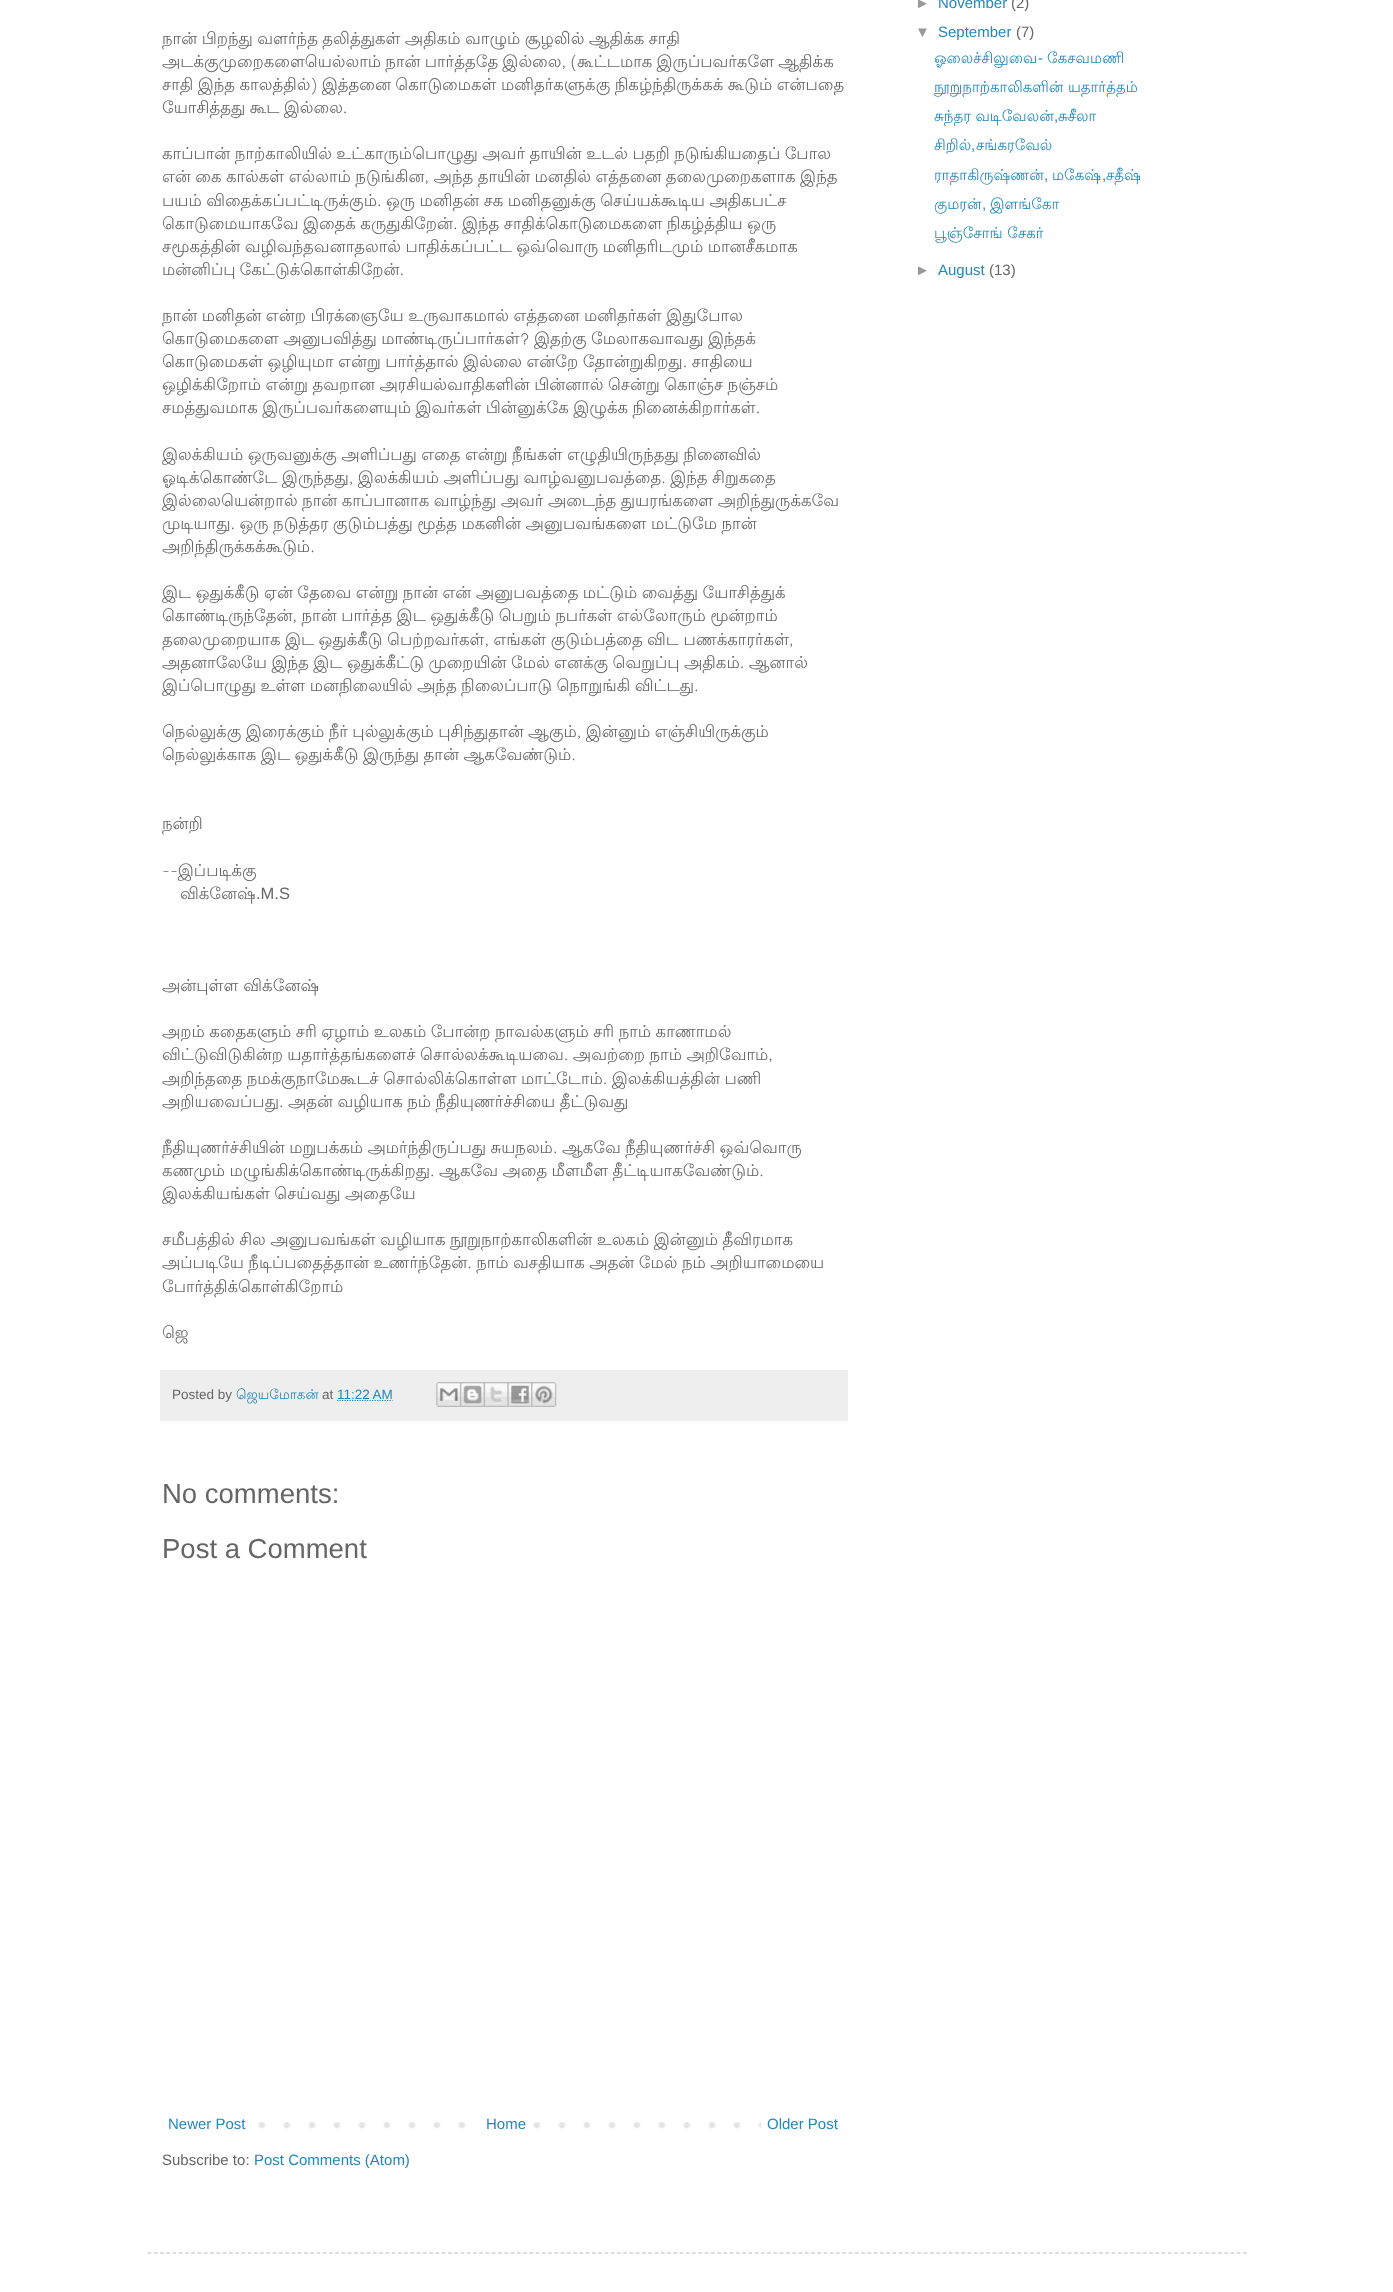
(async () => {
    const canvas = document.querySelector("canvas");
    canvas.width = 1393;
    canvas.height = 2292;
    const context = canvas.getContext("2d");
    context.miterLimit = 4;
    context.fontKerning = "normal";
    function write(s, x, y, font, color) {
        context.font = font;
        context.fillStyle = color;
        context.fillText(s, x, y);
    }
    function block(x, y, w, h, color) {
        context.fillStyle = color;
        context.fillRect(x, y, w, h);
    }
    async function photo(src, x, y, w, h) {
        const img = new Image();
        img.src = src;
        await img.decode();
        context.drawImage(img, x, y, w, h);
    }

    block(0, 0, 1393, 2292, "rgb(255, 255, 255)");
    context.wordSpacing = "-0.5px";
    write("நான் பிறந்து வளர்ந்த தலித்துகள் அதிகம் வாழும் சூழலில் ஆதிக்க சாதி", 162, 44, "16.5px Lohit Tamil", "rgb(102, 102, 102)");
    context.wordSpacing = "-0.75px";
    write("அடக்குமுறைகளையெல்லாம் நான் பார்த்ததே இல்லை, (கூட்டமாக இருப்பவர்களே ஆதிக்க", 162, 67, "16.5px Lohit Tamil", "rgb(102, 102, 102)");
    context.wordSpacing = "-0.5px";
    write("சாதி இந்த காலத்தில்) இத்தனை கொடுமைகள் மனிதர்களுக்கு நிகழ்ந்திருக்கக் கூடும் என்பதை", 162, 90, "16.5px Lohit Tamil", "rgb(102, 102, 102)");
    write("யோசித்தது கூட இல்லை.", 162, 113, "16.5px Lohit Tamil", "rgb(102, 102, 102)");
    write("காப்பான் நாற்காலியில் உட்காரும்பொழுது அவர் தாயின் உடல் பதறி நடுங்கியதைப் போல", 162, 159, "16.5px Lohit Tamil", "rgb(102, 102, 102)");
    write("என் கை கால்கள் எல்லாம் நடுங்கின, அந்த தாயின் மனதில் எத்தனை தலைமுறைகளாக இந்த", 162, 182, "16.5px Lohit Tamil", "rgb(102, 102, 102)");
    write("பயம் விதைக்கப்பட்டிருக்கும். ஒரு மனிதன் சக மனிதனுக்கு செய்யக்கூடிய அதிகபட்ச", 162, 206, "16.5px Lohit Tamil", "rgb(102, 102, 102)");
    write("கொடுமையாகவே இதைக் கருதுகிறேன். இந்த சாதிக்கொடுமைகளை நிகழ்த்திய ஒரு", 162, 229, "16.5px Lohit Tamil", "rgb(102, 102, 102)");
    write("சமூகத்தின் வழிவந்தவனாதலால் பாதிக்கப்பட்ட ஒவ்வொரு மனிதரிடமும் மானசீகமாக", 162, 252, "16.5px Lohit Tamil", "rgb(102, 102, 102)");
    context.wordSpacing = "-1px";
    write("மன்னிப்பு கேட்டுக்கொள்கிறேன்.", 162, 275, "16.5px Lohit Tamil", "rgb(102, 102, 102)");
    context.wordSpacing = "-0.5px";
    write("நான் மனிதன் என்ற பிரக்ஞையே உருவாகமால் எத்தனை மனிதர்கள் இதுபோல", 162, 321, "16.5px Lohit Tamil", "rgb(102, 102, 102)");
    write("கொடுமைகளை அனுபவித்து மாண்டிருப்பார்கள்? இதற்கு மேலாகவாவது இந்தக்", 162, 344, "16.5px Lohit Tamil", "rgb(102, 102, 102)");
    write("கொடுமைகள் ஒழியுமா என்று பார்த்தால் இல்லை என்றே தோன்றுகிறது. சாதியை", 162, 367, "16.5px Lohit Tamil", "rgb(102, 102, 102)");
    write("ஒழிக்கிறோம் என்று தவறான அரசியல்வாதிகளின் பின்னால் சென்று கொஞ்ச நஞ்சம்", 162, 390, "16.5px Lohit Tamil", "rgb(102, 102, 102)");
    write("சமத்துவமாக இருப்பவர்களையும் இவர்கள் பின்னுக்கே இழுக்க நினைக்கிறார்கள்.", 162, 413, "16.5px Lohit Tamil", "rgb(102, 102, 102)");
    write("இலக்கியம் ஒருவனுக்கு அளிப்பது எதை என்று நீங்கள் எழுதியிருந்தது நினைவில்", 162, 460, "16.5px Lohit Tamil", "rgb(102, 102, 102)");
    write("ஓடிக்கொண்டே இருந்தது, இலக்கியம் அளிப்பது வாழ்வனுபவத்தை. இந்த சிறுகதை", 162, 483, "16.5px Lohit Tamil", "rgb(102, 102, 102)");
    write("இல்லையென்றால் நான் காப்பானாக வாழ்ந்து அவர் அடைந்த துயரங்களை அறிந்துருக்கவே", 162, 506, "16.5px Lohit Tamil", "rgb(102, 102, 102)");
    write("முடியாது. ஒரு நடுத்தர குடும்பத்து மூத்த மகனின் அனுபவங்களை மட்டுமே நான்", 162, 529, "16.5px Lohit Tamil", "rgb(102, 102, 102)");
    context.wordSpacing = "0px";
    write("அறிந்திருக்கக்கூடும்.", 162, 552, "16.5px Lohit Tamil", "rgb(102, 102, 102)");
    context.wordSpacing = "-0.5px";
    write("இட ஒதுக்கீடு ஏன் தேவை என்று நான் என் அனுபவத்தை மட்டும் வைத்து யோசித்துக்", 162, 598, "16.5px Lohit Tamil", "rgb(102, 102, 102)");
    write("கொண்டிருந்தேன், நான் பார்த்த இட ஒதுக்கீடு பெறும் நபர்கள் எல்லோரும் மூன்றாம்", 162, 621, "16.5px Lohit Tamil", "rgb(102, 102, 102)");
    write("தலைமுறையாக இட ஒதுக்கீடு பெற்றவர்கள், எங்கள் குடும்பத்தை விட பணக்காரர்கள்,", 162, 645, "16.5px Lohit Tamil", "rgb(102, 102, 102)");
    write("அதனாலேயே இந்த இட ஒதுக்கீட்டு முறையின் மேல் எனக்கு வெறுப்பு அதிகம். ஆனால்", 162, 668, "16.5px Lohit Tamil", "rgb(102, 102, 102)");
    write("இப்பொழுது உள்ள மனநிலையில் அந்த நிலைப்பாடு நொறுங்கி விட்டது.", 162, 691, "16.5px Lohit Tamil", "rgb(102, 102, 102)");
    write("நெல்லுக்கு இரைக்கும் நீர் புல்லுக்கும் புசிந்துதான் ஆகும், இன்னும் எஞ்சியிருக்கும்", 162, 737, "16.5px Lohit Tamil", "rgb(102, 102, 102)");
    write("நெல்லுக்காக இட ஒதுக்கீடு இருந்து தான் ஆகவேண்டும்.", 162, 760, "16.5px Lohit Tamil", "rgb(102, 102, 102)");
    context.wordSpacing = "0px";
    write("நன்றி", 162, 829, "16.5px Lohit Tamil", "rgb(102, 102, 102)");
    write("--இப்படிக்கு", 162, 876, "16.5px Lohit Tamil", "rgb(102, 102, 102)");
    write("விக்னேஷ்", 180, 899, "16.5px Lohit Tamil", "rgb(102, 102, 102)");
    write(".M.S", 256, 899, "16.5px Liberation Sans", "rgb(102, 102, 102)");
    write("அன்புள்ள விக்னேஷ்", 162, 991, "16.5px Lohit Tamil", "rgb(102, 102, 102)");
    context.wordSpacing = "-0.5px";
    write("அறம் கதைகளும் சரி ஏழாம் உலகம் போன்ற நாவல்களும் சரி நாம் காணாமல்", 162, 1037, "16.5px Lohit Tamil", "rgb(102, 102, 102)");
    write("விட்டுவிடுகின்ற யதார்த்தங்களைச் சொல்லக்கூடியவை. அவற்றை நாம் அறிவோம்,", 162, 1060, "16.5px Lohit Tamil", "rgb(102, 102, 102)");
    write("அறிந்ததை நமக்குநாமேகூடச் சொல்லிக்கொள்ள மாட்டோம். இலக்கியத்தின் பணி", 162, 1084, "16.5px Lohit Tamil", "rgb(102, 102, 102)");
    write("அறியவைப்பது. அதன் வழியாக நம் நீதியுணர்ச்சியை தீட்டுவது", 162, 1107, "16.5px Lohit Tamil", "rgb(102, 102, 102)");
    write("நீதியுணர்ச்சியின் மறுபக்கம் அமர்ந்திருப்பது சுயநலம். ஆகவே நீதியுணர்ச்சி ஒவ்வொரு", 162, 1153, "16.5px Lohit Tamil", "rgb(102, 102, 102)");
    write("கணமும் மழுங்கிக்கொண்டிருக்கிறது. ஆகவே அதை மீளமீள தீட்டியாகவேண்டும்.", 162, 1176, "16.5px Lohit Tamil", "rgb(102, 102, 102)");
    write("இலக்கியங்கள் செய்வது அதையே", 162, 1199, "16.5px Lohit Tamil", "rgb(102, 102, 102)");
    write("சமீபத்தில் சில அனுபவங்கள் வழியாக நூறுநாற்காலிகளின் உலகம் இன்னும் தீவிரமாக", 162, 1245, "16.5px Lohit Tamil", "rgb(102, 102, 102)");
    write("அப்படியே நீடிப்பதைத்தான் உணர்ந்தேன். நாம் வசதியாக அதன் மேல் நம் அறியாமையை", 162, 1268, "16.5px Lohit Tamil", "rgb(102, 102, 102)");
    context.wordSpacing = "0px";
    write("போர்த்திக்கொள்கிறோம்", 162, 1292, "16.5px Lohit Tamil", "rgb(102, 102, 102)");
    write("ஜெ", 162, 1338, "16.5px Lohit Tamil", "rgb(102, 102, 102)");
    block(160, 1370, 688, 51, "rgb(238, 238, 238)");
    write("Posted by", 172, 1399, "13.5px Liberation Sans", "rgb(102, 102, 102)");
    write("ஜெயமோகன்", 236, 1399, "13.5px Lohit Tamil", "rgb(34, 136, 187)");
    write("at", 322, 1399, "13.5px Liberation Sans", "rgb(102, 102, 102)");
    write("11:22 AM", 337, 1399, "13.5px Liberation Sans", "rgb(34, 136, 187)");
    context.beginPath();
    context.moveTo(337, 1400.5);
    context.lineTo(392.5, 1400.5);
    context.strokeStyle = "rgb(34, 136, 187)";
    context.lineWidth = 1.2;
    context.setLineDash([1.25, 1.25]);
    context.stroke();
    await photo("media/1.png", 436, 1382, 24, 25);
    await photo("media/2.png", 460, 1382, 24, 25);
    await photo("media/3.png", 483, 1382, 25, 25);
    await photo("media/4.png", 507, 1382, 25, 25);
    await photo("media/5.png", 531, 1382, 26, 25);
    write("No comments:", 162, 1503, "27.5px Liberation Sans", "rgb(102, 102, 102)");
    write("Post a Comment", 162, 1558, "27.5px Liberation Sans", "rgb(102, 102, 102)");
    await photo("media/6.png", 162, 2122, 599, 7);
    block(163, 2122, 78, 7, "rgb(255, 255, 255)");
    write("Newer Post", 168, 2129, "15px Liberation Sans", "rgb(34, 136, 187)");
    block(483, 2122, 33, 7, "rgb(255, 255, 255)");
    write("Home", 486, 2129, "15px Liberation Sans", "rgb(34, 136, 187)");
    write("Older Post", 767, 2129, "15px Liberation Sans", "rgb(34, 136, 187)");
    write("Subscribe to:", 162, 2165, "15px Liberation Sans", "rgb(102, 102, 102)");
    write("Post Comments (Atom)", 254, 2165, "15px Liberation Sans", "rgb(34, 136, 187)");
    write("►", 915, 8, "15px Liberation Sans", "rgb(153, 153, 153)");
    write("November", 938, 8, "15px Liberation Sans", "rgb(34, 136, 187)");
    write("(2)", 1011, 8, "15px Liberation Sans", "rgb(102, 102, 102)");
    write("▼", 915, 37, "15px Liberation Sans", "rgb(153, 153, 153)");
    write("September", 938, 37, "15px Liberation Sans", "rgb(34, 136, 187)");
    write("(7)", 1016, 37, "15px Liberation Sans", "rgb(102, 102, 102)");
    write("ஓலைச்சிலுவை", 934, 63, "15px Lohit Tamil", "rgb(34, 136, 187)");
    write("-", 1038, 63, "15px Liberation Sans", "rgb(34, 136, 187)");
    write("கேசவமணி", 1047, 63, "15px Lohit Tamil", "rgb(34, 136, 187)");
    write("நூறுநாற்காலிகளின் யதார்த்தம்", 934, 92, "15px Lohit Tamil", "rgb(34, 136, 187)");
    write("சுந்தர வடிவேலன்", 934, 121, "15px Lohit Tamil", "rgb(34, 136, 187)");
    write(",", 1054, 121, "15px Liberation Sans", "rgb(34, 136, 187)");
    write("சுசீலா", 1058, 121, "15px Lohit Tamil", "rgb(34, 136, 187)");
    write("சிறில்", 934, 150, "15px Lohit Tamil", "rgb(34, 136, 187)");
    write(",", 971, 150, "15px Liberation Sans", "rgb(34, 136, 187)");
    write("சங்கரவேல்", 976, 150, "15px Lohit Tamil", "rgb(34, 136, 187)");
    write("ராதாகிருஷ்ணன்", 934, 180, "15px Lohit Tamil", "rgb(34, 136, 187)");
    write(",", 1044, 180, "15px Liberation Sans", "rgb(34, 136, 187)");
    write("மகேஷ்", 1052, 180, "15px Lohit Tamil", "rgb(34, 136, 187)");
    write(",", 1102, 180, "15px Liberation Sans", "rgb(34, 136, 187)");
    write("சதீஷ்", 1106, 180, "15px Lohit Tamil", "rgb(34, 136, 187)");
    write("குமரன்", 934, 209, "15px Lohit Tamil", "rgb(34, 136, 187)");
    write(",", 982, 209, "15px Liberation Sans", "rgb(34, 136, 187)");
    write("இளங்கோ", 990, 209, "15px Lohit Tamil", "rgb(34, 136, 187)");
    write("பூஞ்சோங் சேகர்", 934, 238, "15px Lohit Tamil", "rgb(34, 136, 187)");
    write("►", 915, 275, "15px Liberation Sans", "rgb(153, 153, 153)");
    write("August", 938, 275, "15px Liberation Sans", "rgb(34, 136, 187)");
    write("(13)", 989, 275, "15px Liberation Sans", "rgb(102, 102, 102)");
    context.beginPath();
    context.moveTo(147.5, 2253);
    context.lineTo(1247.5, 2253);
    context.strokeStyle = "rgb(187, 187, 187)";
    context.setLineDash([3.75, 2.51]);
    context.stroke();
})();
